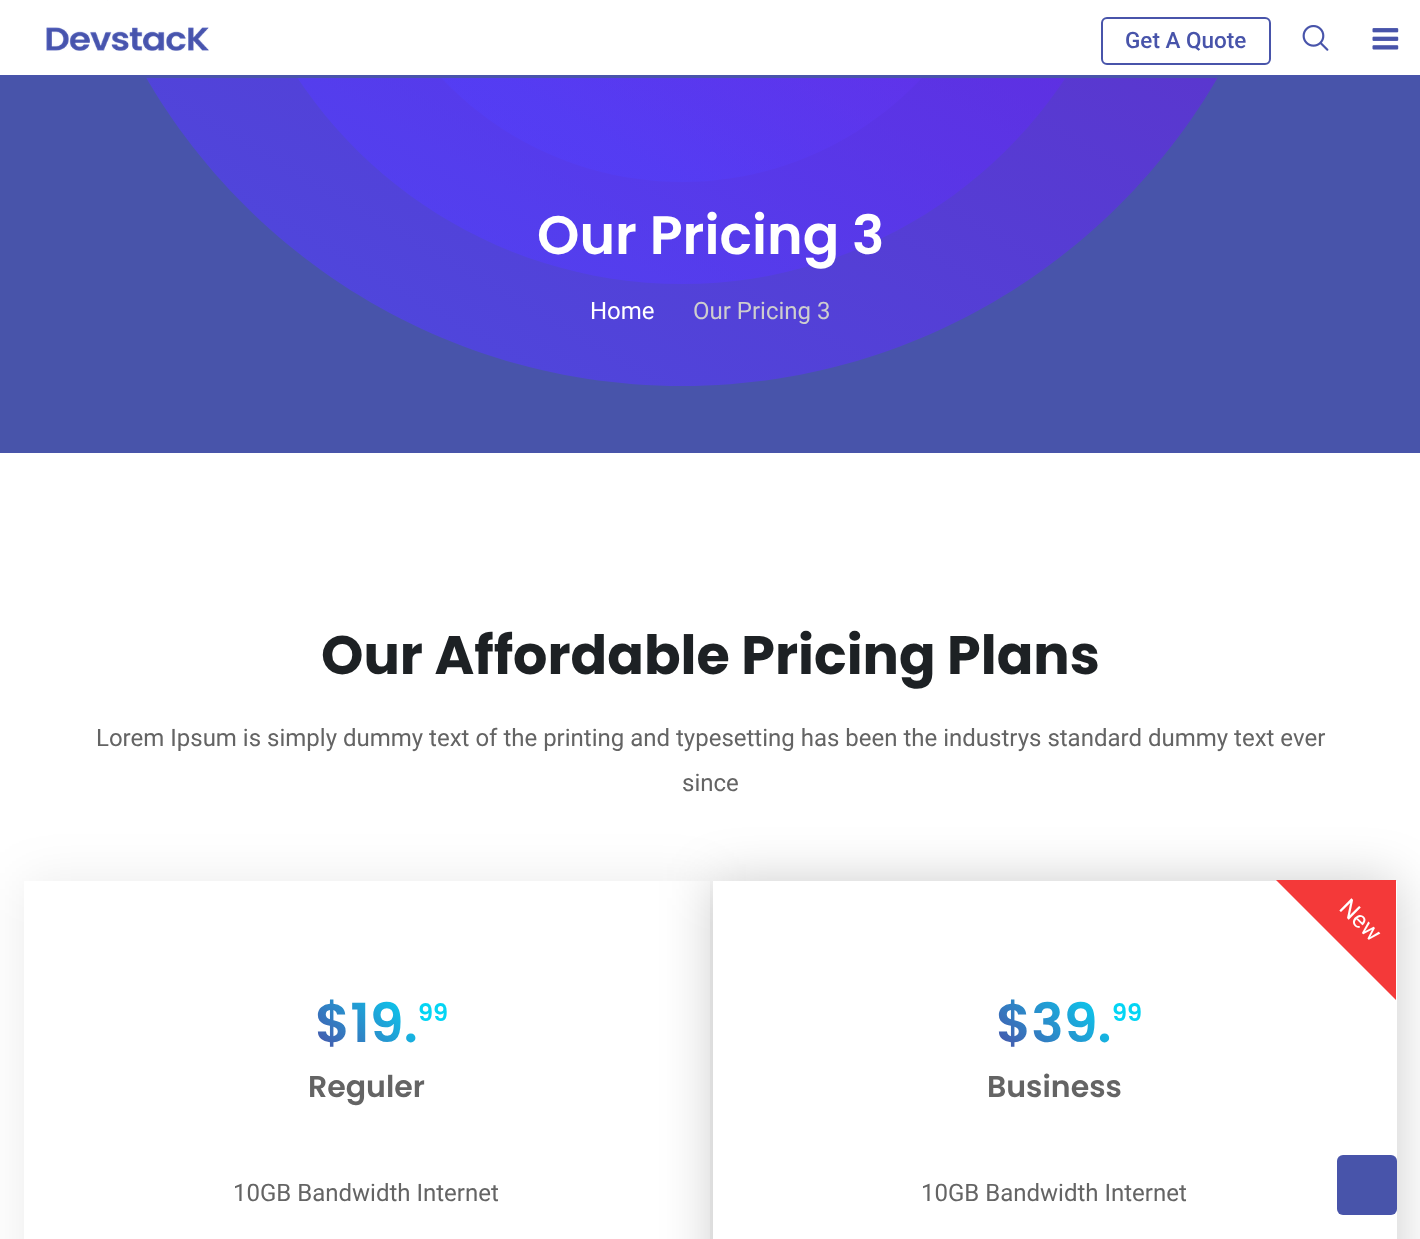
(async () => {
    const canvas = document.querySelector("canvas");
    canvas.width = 1420;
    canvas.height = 1239;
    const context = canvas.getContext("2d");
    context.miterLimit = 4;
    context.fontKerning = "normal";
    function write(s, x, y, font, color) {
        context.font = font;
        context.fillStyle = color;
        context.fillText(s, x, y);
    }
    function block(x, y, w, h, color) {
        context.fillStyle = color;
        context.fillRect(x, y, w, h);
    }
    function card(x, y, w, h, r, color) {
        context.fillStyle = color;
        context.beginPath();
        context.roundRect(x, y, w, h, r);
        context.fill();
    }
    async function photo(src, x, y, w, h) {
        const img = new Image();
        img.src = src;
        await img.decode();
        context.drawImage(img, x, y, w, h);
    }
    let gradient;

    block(0, 0, 1420, 1239, "rgb(255, 255, 255)");
    block(0, 78, 1420, 375, "rgb(72, 84, 170)");
    gradient = context.createLinearGradient(62, 219, 682, -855);
    gradient.addColorStop(0, "rgba(82, 63, 255, 0.6)");
    gradient.addColorStop(1, "rgba(117, 14, 213, 0.6)");
    context.fillStyle = gradient;
    context.beginPath();
    context.moveTo(682, -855);
    context.bezierCurveTo(1024, -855, 1302, -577, 1302, -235);
    context.bezierCurveTo(1302, 108, 1024, 386, 682, 386);
    context.bezierCurveTo(339, 386, 62, 108, 62, -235);
    context.bezierCurveTo(62, -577, 339, -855, 682, -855);
    context.closePath();
    context.fill();
    gradient = context.createLinearGradient(221, 160, 682, -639);
    gradient.addColorStop(0, "rgba(82, 63, 255, 0.6)");
    gradient.addColorStop(1, "rgba(109, 26, 223, 0.6)");
    context.fillStyle = gradient;
    context.beginPath();
    context.moveTo(682, -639);
    context.bezierCurveTo(936, -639, 1143, -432, 1143, -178);
    context.bezierCurveTo(1143, 77, 936, 284, 682, 284);
    context.bezierCurveTo(427, 284, 220, 77, 220, -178);
    context.bezierCurveTo(220, -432, 427, -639, 682, -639);
    context.closePath();
    context.fill();
    gradient = context.createLinearGradient(351, 93, 682, -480);
    gradient.addColorStop(0.13, "rgba(82, 63, 255, 0.4)");
    gradient.addColorStop(1, "rgba(130, 33, 221, 0.4)");
    context.fillStyle = gradient;
    context.beginPath();
    context.moveTo(682, -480);
    context.bezierCurveTo(864, -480, 1012, -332, 1012, -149);
    context.bezierCurveTo(1012, 33, 864, 182, 682, 182);
    context.bezierCurveTo(499, 182, 351, 33, 351, -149);
    context.bezierCurveTo(351, -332, 499, -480, 682, -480);
    context.closePath();
    context.fill();
    block(108, 0, 1148, 75, "rgb(255, 255, 255)");
    block(0, 75, 1420, 3, "rgb(72, 84, 170)");
    await photo("media/1.png", 46, 27, 163, 24);
    context.beginPath();
    context.roundRect(1102, 18, 168, 46, 5);
    context.strokeStyle = "rgb(72, 84, 170)";
    context.lineWidth = 2;
    context.stroke();
    write("Get A Quote", 1125, 48, "500 22.5px Roboto", "rgb(72, 84, 170)");
    await photo("media/2.png", 1302, 25, 27, 26);
    await photo("media/3.png", 1372, 28, 27, 22);
    write("Our Pricing 3", 537, 254, "600 54px Poppins", "rgb(255, 255, 255)");
    write("Home", 590, 319, "24px Roboto", "rgb(255, 255, 255)");
    write("Our Pricing 3", 693, 319, "24px Roboto", "rgb(206, 206, 206)");
    write("Our Affordable Pricing Plans", 321, 674, "bold 54px Poppins", "rgb(29, 33, 36)");
    write("Lorem Ipsum is simply dummy text of the printing and typesetting has been the industrys standard dummy text ever", 96, 746, "24px Roboto", "rgb(100, 100, 100)");
    write("since", 682, 791, "24px Roboto", "rgb(100, 100, 100)");
    context.fillStyle = "rgba(0, 0, 0, 0.08)";
    context.filter = "blur(26px)";
    context.beginPath();
    context.rect(24, 881, 686, 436);
    context.fill();
    context.filter = "none";
    block(24, 881, 686, 358, "rgb(255, 255, 255)");
    context.font = "600 54px Poppins";
    gradient = context.createLinearGradient(403, 987, 329, 1061);
    gradient.addColorStop(0, "rgb(4, 213, 244)");
    gradient.addColorStop(1, "rgb(72, 84, 170)");
    context.fillStyle = gradient;
    context.fillText("$19.", 315, 1042);
    write("99", 418, 1021, "600 24px Poppins", "rgb(4, 213, 244)");
    write("Reguler", 308, 1097, "600 30px Poppins", "rgb(100, 100, 100)");
    write("10GB Bandwidth Internet", 233, 1201, "24px Roboto", "rgb(100, 100, 100)");
    context.fillStyle = "rgba(0, 0, 0, 0.2)";
    context.filter = "blur(26px)";
    context.beginPath();
    context.rect(713, 881, 684, 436);
    context.fill();
    context.filter = "none";
    block(713, 881, 684, 358, "rgb(255, 255, 255)");
    context.fillStyle = "rgb(244, 57, 57)";
    context.beginPath();
    context.moveTo(1276, 880);
    context.lineTo(1396, 880);
    context.lineTo(1396, 1000);
    context.closePath();
    context.fill();
    context.fillStyle = "rgb(255, 255, 255)";
    context.save();
    context.translate(1338, 909);
    context.rotate(45 * Math.PI / 180);
    context.fillText("New", 0, 0);
    context.restore();
    context.font = "600 54px Poppins";
    gradient = context.createLinearGradient(1094, 983, 1014, 1064);
    gradient.addColorStop(0, "rgb(4, 213, 244)");
    gradient.addColorStop(1, "rgb(72, 84, 170)");
    context.fillStyle = gradient;
    context.fillText("$39.", 996, 1042);
    write("99", 1112, 1021, "600 24px Poppins", "rgb(4, 213, 244)");
    write("Business", 987, 1097, "600 30px Poppins", "rgb(100, 100, 100)");
    write("10GB Bandwidth Internet", 921, 1201, "24px Roboto", "rgb(100, 100, 100)");
    card(1337, 1155, 60, 60, 6, "rgb(72, 84, 170)");
})();
